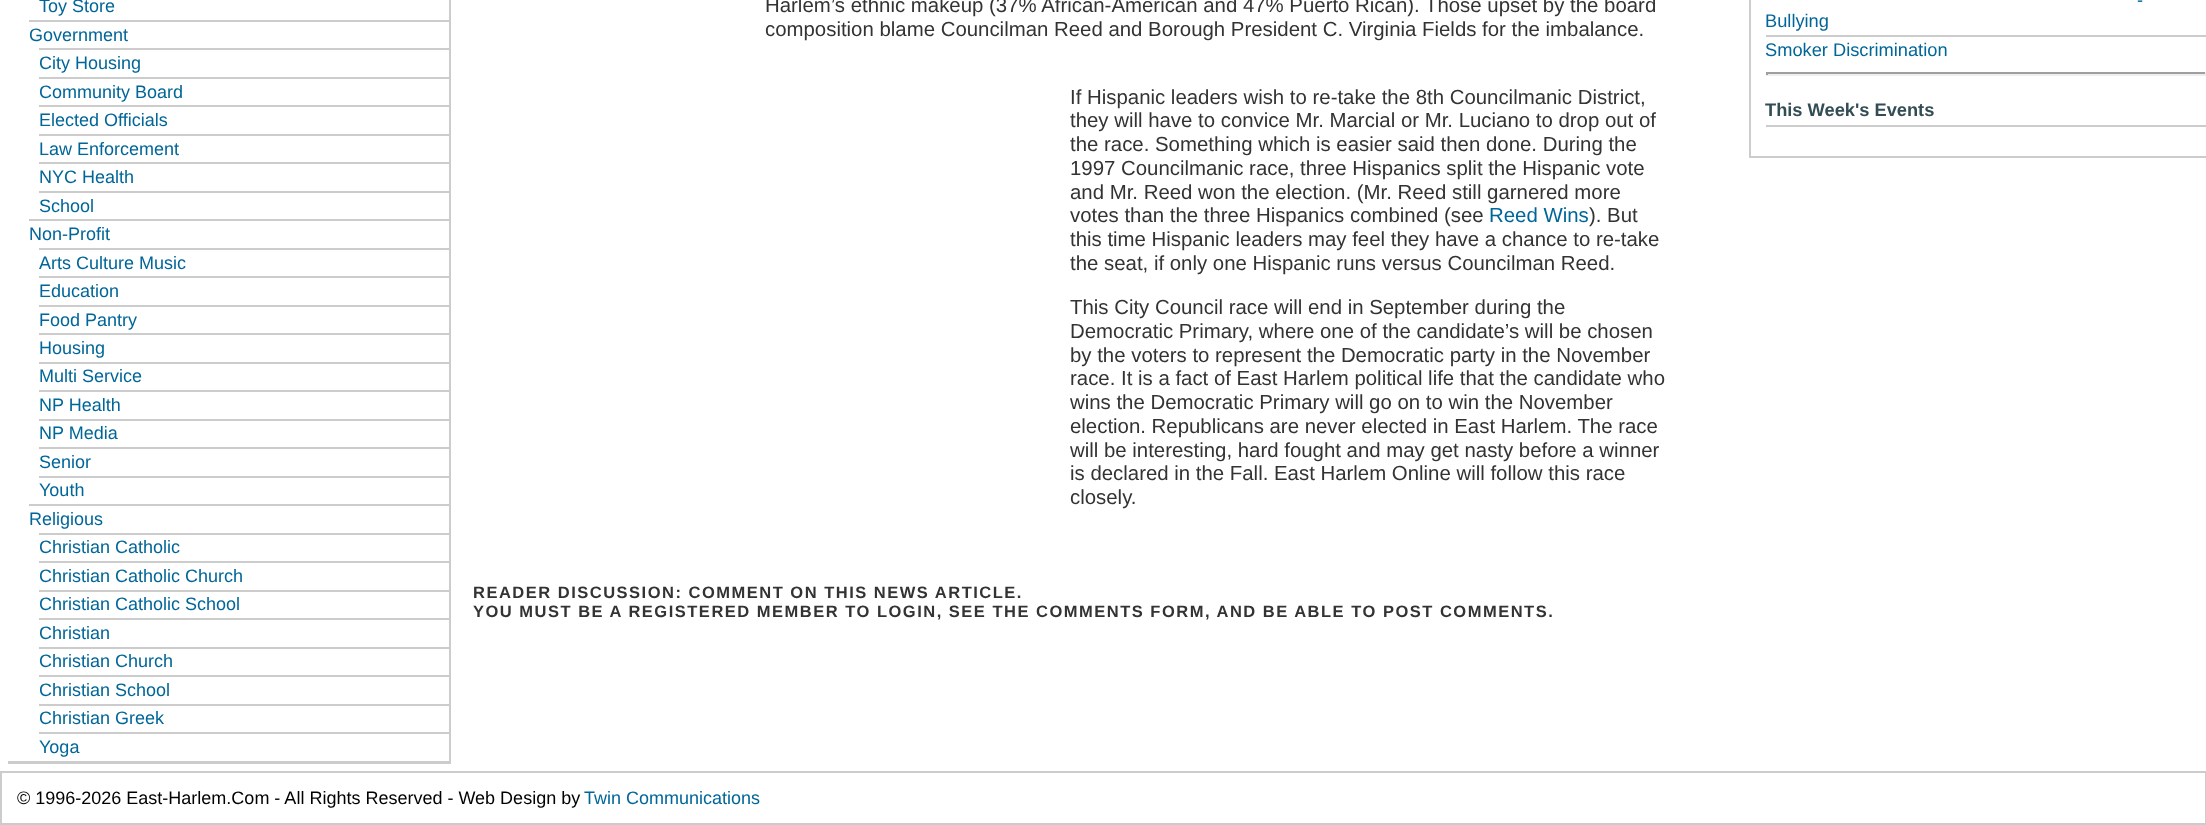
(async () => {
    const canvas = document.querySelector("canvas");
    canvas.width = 2206;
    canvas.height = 825;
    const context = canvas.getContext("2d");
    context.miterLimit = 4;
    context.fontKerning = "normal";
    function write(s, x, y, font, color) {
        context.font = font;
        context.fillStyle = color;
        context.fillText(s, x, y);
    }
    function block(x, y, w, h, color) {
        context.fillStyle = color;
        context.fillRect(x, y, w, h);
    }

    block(0, 0, 2206, 825, "rgb(255, 255, 255)");
    block(449, 0, 2, 764, "rgb(204, 204, 204)");
    block(8, 762, 442, 2, "rgb(204, 204, 204)");
    block(8, 761, 441, 1, "rgb(204, 204, 204)");
    write("Toy Store", 39, 12, "18px Liberation Sans", "rgb(0, 102, 153)");
    block(29, 20, 420, 2, "rgb(204, 204, 204)");
    write("Government", 29, 41, "18px Liberation Sans", "rgb(0, 102, 153)");
    block(39, 48, 410, 2, "rgb(204, 204, 204)");
    write("City Housing", 39, 69, "18px Liberation Sans", "rgb(0, 102, 153)");
    block(39, 77, 410, 2, "rgb(204, 204, 204)");
    write("Community Board", 39, 98, "18px Liberation Sans", "rgb(0, 102, 153)");
    block(39, 105, 410, 2, "rgb(204, 204, 204)");
    write("Elected Officials", 39, 126, "18px Liberation Sans", "rgb(0, 102, 153)");
    block(39, 134, 410, 2, "rgb(204, 204, 204)");
    write("Law Enforcement", 39, 155, "18px Liberation Sans", "rgb(0, 102, 153)");
    block(39, 162, 410, 2, "rgb(204, 204, 204)");
    write("NYC Health", 39, 183, "18px Liberation Sans", "rgb(0, 102, 153)");
    block(39, 191, 410, 2, "rgb(204, 204, 204)");
    write("School", 39, 212, "18px Liberation Sans", "rgb(0, 102, 153)");
    block(29, 219, 420, 2, "rgb(204, 204, 204)");
    write("Non-Profit", 29, 240, "18px Liberation Sans", "rgb(0, 102, 153)");
    block(39, 248, 410, 2, "rgb(204, 204, 204)");
    write("Arts Culture Music", 39, 269, "18px Liberation Sans", "rgb(0, 102, 153)");
    block(39, 276, 410, 2, "rgb(204, 204, 204)");
    write("Education", 39, 297, "18px Liberation Sans", "rgb(0, 102, 153)");
    block(39, 305, 410, 2, "rgb(204, 204, 204)");
    write("Food Pantry", 39, 326, "18px Liberation Sans", "rgb(0, 102, 153)");
    block(39, 333, 410, 2, "rgb(204, 204, 204)");
    write("Housing", 39, 354, "18px Liberation Sans", "rgb(0, 102, 153)");
    block(39, 362, 410, 2, "rgb(204, 204, 204)");
    write("Multi Service", 39, 382, "18px Liberation Sans", "rgb(0, 102, 153)");
    block(39, 390, 410, 2, "rgb(204, 204, 204)");
    write("NP Health", 39, 411, "18px Liberation Sans", "rgb(0, 102, 153)");
    block(39, 419, 410, 2, "rgb(204, 204, 204)");
    write("NP Media", 39, 439, "18px Liberation Sans", "rgb(0, 102, 153)");
    block(39, 447, 410, 2, "rgb(204, 204, 204)");
    write("Senior", 39, 468, "18px Liberation Sans", "rgb(0, 102, 153)");
    block(39, 476, 410, 2, "rgb(204, 204, 204)");
    write("Youth", 39, 496, "18px Liberation Sans", "rgb(0, 102, 153)");
    block(29, 504, 420, 2, "rgb(204, 204, 204)");
    write("Religious", 29, 525, "18px Liberation Sans", "rgb(0, 102, 153)");
    block(39, 533, 410, 2, "rgb(204, 204, 204)");
    write("Christian Catholic", 39, 553, "18px Liberation Sans", "rgb(0, 102, 153)");
    block(39, 561, 410, 2, "rgb(204, 204, 204)");
    write("Christian Catholic Church", 39, 582, "18px Liberation Sans", "rgb(0, 102, 153)");
    block(39, 590, 410, 2, "rgb(204, 204, 204)");
    write("Christian Catholic School", 39, 610, "18px Liberation Sans", "rgb(0, 102, 153)");
    block(39, 618, 410, 2, "rgb(204, 204, 204)");
    write("Christian", 39, 639, "18px Liberation Sans", "rgb(0, 102, 153)");
    block(39, 647, 410, 2, "rgb(204, 204, 204)");
    write("Christian Church", 39, 667, "18px Liberation Sans", "rgb(0, 102, 153)");
    block(39, 675, 410, 2, "rgb(204, 204, 204)");
    write("Christian School", 39, 696, "18px Liberation Sans", "rgb(0, 102, 153)");
    block(39, 704, 410, 2, "rgb(204, 204, 204)");
    write("Christian Greek", 39, 724, "18px Liberation Sans", "rgb(0, 102, 153)");
    block(39, 732, 410, 2, "rgb(204, 204, 204)");
    write("Yoga", 39, 753, "18px Liberation Sans", "rgb(0, 102, 153)");
    write("Harlem’s ethnic makeup (37% African-American and 47% Puerto Rican). Those upset by the board", 765, 12, "20.4px Liberation Sans", "rgb(51, 51, 51)");
    write("composition blame Councilman Reed and Borough President C. Virginia Fields for the imbalance.", 765, 36, "20.4px Liberation Sans", "rgb(51, 51, 51)");
    write("If Hispanic leaders wish to re-take the 8th Councilmanic District,", 1070, 104, "20.4px Liberation Sans", "rgb(51, 51, 51)");
    write("they will have to convice Mr. Marcial or Mr. Luciano to drop out of", 1070, 127, "20.4px Liberation Sans", "rgb(51, 51, 51)");
    write("the race. Something which is easier said then done. During the", 1070, 151, "20.4px Liberation Sans", "rgb(51, 51, 51)");
    write("1997 Councilmanic race, three Hispanics split the Hispanic vote", 1070, 175, "20.4px Liberation Sans", "rgb(51, 51, 51)");
    write("and Mr. Reed won the election. (Mr. Reed still garnered more", 1070, 199, "20.4px Liberation Sans", "rgb(51, 51, 51)");
    write("votes than the three Hispanics combined (see", 1070, 222, "20.4px Liberation Sans", "rgb(51, 51, 51)");
    write("Reed Wins", 1489, 222, "20.4px Liberation Sans", "rgb(0, 102, 153)");
    write("). But", 1589, 222, "20.4px Liberation Sans", "rgb(51, 51, 51)");
    write("this time Hispanic leaders may feel they have a chance to re-take", 1070, 246, "20.4px Liberation Sans", "rgb(51, 51, 51)");
    write("the seat, if only one Hispanic runs versus Councilman Reed.", 1070, 270, "20.4px Liberation Sans", "rgb(51, 51, 51)");
    write("This City Council race will end in September during the", 1070, 314, "20.4px Liberation Sans", "rgb(51, 51, 51)");
    write("Democratic Primary, where one of the candidate’s will be chosen", 1070, 338, "20.4px Liberation Sans", "rgb(51, 51, 51)");
    write("by the voters to represent the Democratic party in the November", 1070, 362, "20.4px Liberation Sans", "rgb(51, 51, 51)");
    write("race. It is a fact of East Harlem political life that the candidate who", 1070, 385, "20.4px Liberation Sans", "rgb(51, 51, 51)");
    write("wins the Democratic Primary will go on to win the November", 1070, 409, "20.4px Liberation Sans", "rgb(51, 51, 51)");
    write("election. Republicans are never elected in East Harlem. The race", 1070, 433, "20.4px Liberation Sans", "rgb(51, 51, 51)");
    write("will be interesting, hard fought and may get nasty before a winner", 1070, 457, "20.4px Liberation Sans", "rgb(51, 51, 51)");
    write("is declared in the Fall. East Harlem Online will follow this race", 1070, 480, "20.4px Liberation Sans", "rgb(51, 51, 51)");
    write("closely.", 1070, 504, "20.4px Liberation Sans", "rgb(51, 51, 51)");
    context.letterSpacing = "1.5px";
    write("READER DISCUSSION: COMMENT ON THIS NEWS ARTICLE.", 473, 598, "bold 16.5px Liberation Sans", "rgb(51, 51, 51)");
    write("YOU MUST BE A REGISTERED MEMBER TO LOGIN, SEE THE COMMENTS FORM, AND BE ABLE TO POST COMMENTS.", 473, 617, "bold 16.5px Liberation Sans", "rgb(51, 51, 51)");
    block(1749, 156, 457, 2, "rgb(204, 204, 204)");
    block(1749, 0, 2, 158, "rgb(204, 204, 204)");
    block(1766, 125, 440, 2, "rgb(204, 204, 204)");
    context.letterSpacing = "0px";
    write("-", 2137, 6, "18.25px Liberation Sans", "rgb(0, 102, 153)");
    write("Bullying", 1765, 27, "18.25px Liberation Sans", "rgb(0, 102, 153)");
    block(1766, 35, 440, 2, "rgb(204, 204, 204)");
    write("Smoker Discrimination", 1765, 56, "18.25px Liberation Sans", "rgb(0, 102, 153)");
    block(1766, 72, 440, 2, "rgb(159, 159, 159)");
    block(2205, 72, 1, 3, "rgb(238, 238, 238)");
    block(1766, 74, 440, 2, "rgb(238, 238, 238)");
    block(1766, 72, 2, 3, "rgb(159, 159, 159)");
    write("This Week's Events", 1765, 116, "bold 18.25px Liberation Sans", "rgb(51, 77, 85)");
    context.strokeStyle = "rgb(204, 204, 204)";
    context.lineWidth = 2;
    context.strokeRect(1, 772, 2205, 52);
    write("© 1996-2026 East-Harlem.Com - All Rights Reserved - Web Design by", 17, 804, "18px Liberation Sans", "rgb(0, 0, 0)");
    write("Twin Communications", 584, 804, "18px Liberation Sans", "rgb(0, 102, 153)");
})();
